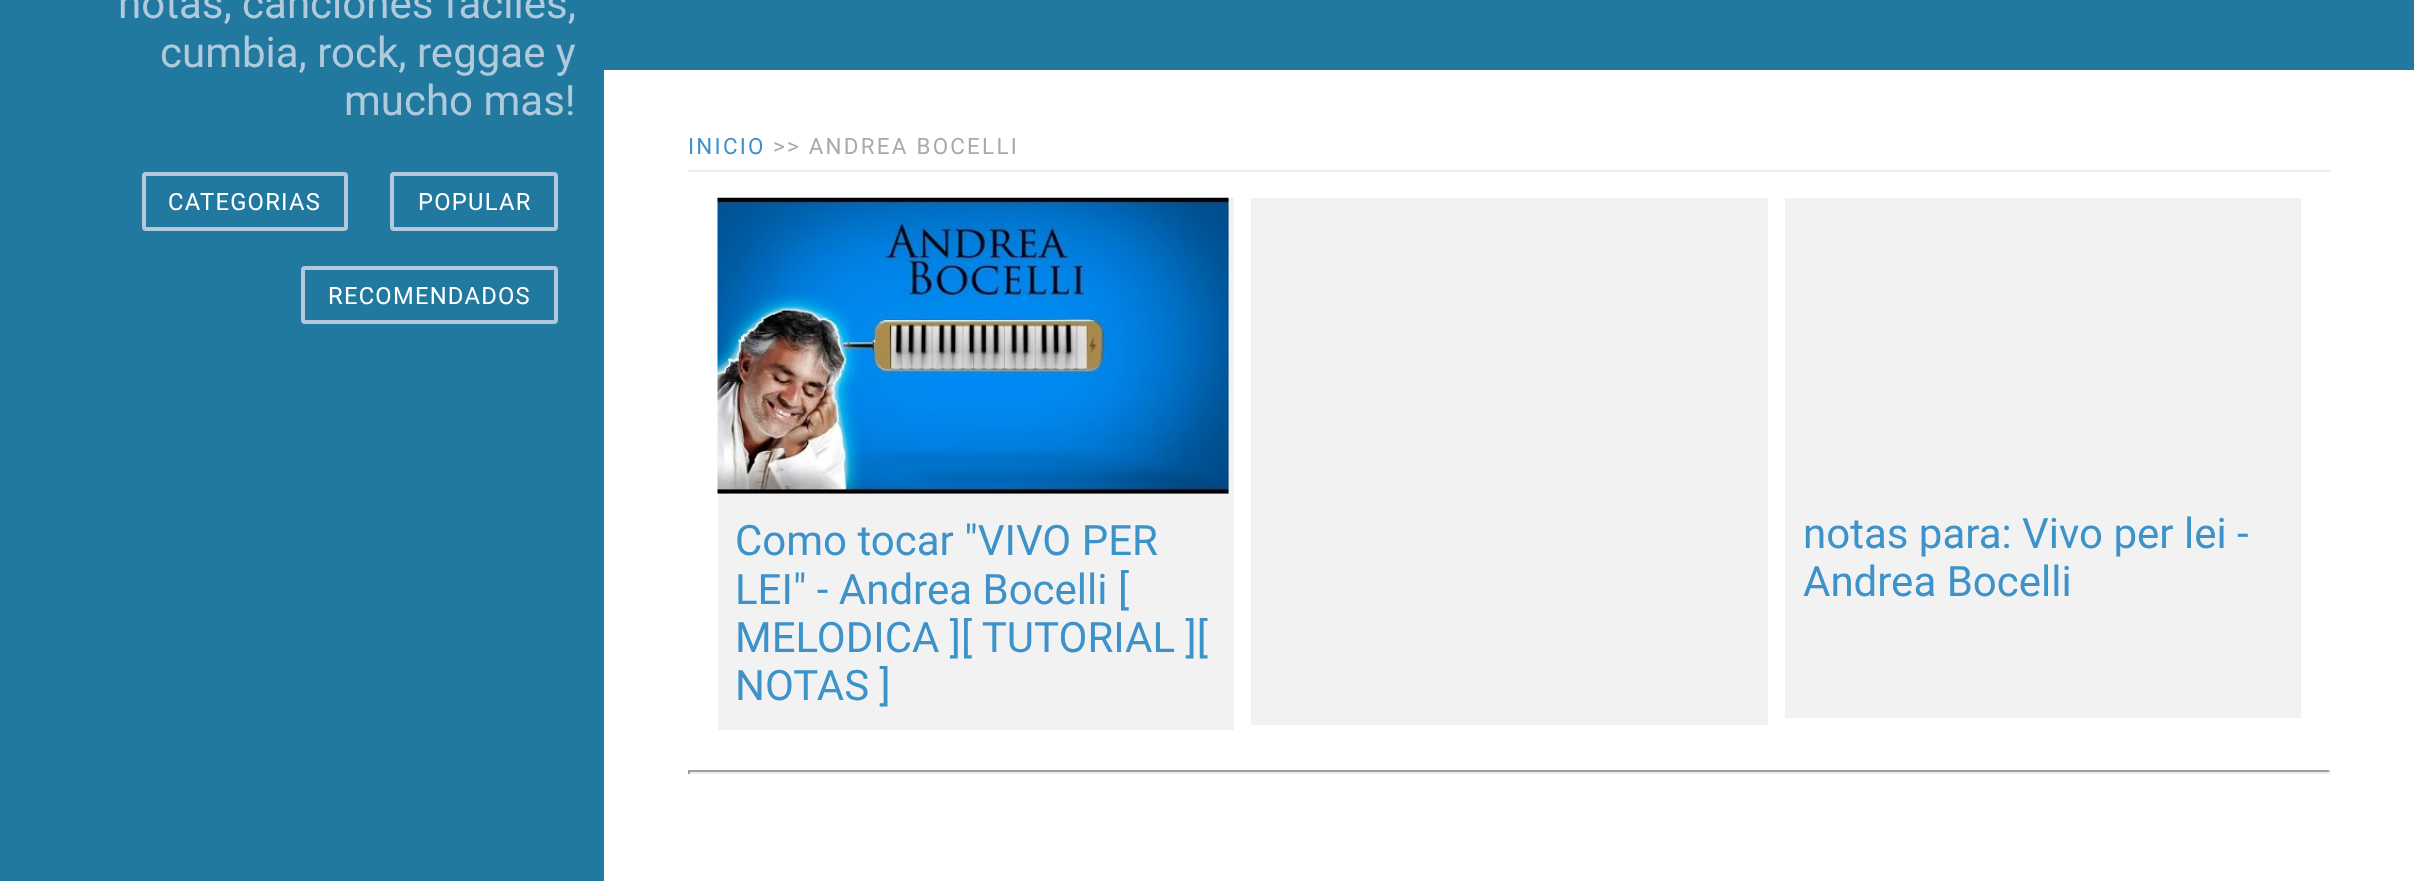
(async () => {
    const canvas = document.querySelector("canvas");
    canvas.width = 2414;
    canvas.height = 881;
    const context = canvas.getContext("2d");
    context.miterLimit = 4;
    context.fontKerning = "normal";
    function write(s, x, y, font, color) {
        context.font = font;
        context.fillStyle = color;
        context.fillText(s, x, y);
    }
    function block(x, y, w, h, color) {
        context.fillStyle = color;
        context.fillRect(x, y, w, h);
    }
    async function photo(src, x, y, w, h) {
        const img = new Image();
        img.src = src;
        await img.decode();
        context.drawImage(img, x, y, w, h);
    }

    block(0, 0, 2414, 881, "rgb(255, 255, 255)");
    block(0, 0, 604, 881, "rgb(34, 121, 160)");
    write("notas, canciones faciles,", 118, 18, "42px Roboto", "rgb(176, 202, 219)");
    write("cumbia, rock, reggae y", 160, 67, "42px Roboto", "rgb(176, 202, 219)");
    write("mucho mas!", 344, 115, "42px Roboto", "rgb(176, 202, 219)");
    context.beginPath();
    context.roundRect(144, 174, 202, 55, 2);
    context.strokeStyle = "rgb(176, 202, 219)";
    context.lineWidth = 4;
    context.stroke();
    context.letterSpacing = "1.25px";
    write("CATEGORIAS", 168, 210, "23.75px Roboto", "rgb(255, 255, 255)");
    context.beginPath();
    context.roundRect(392, 174, 164, 55, 2);
    context.stroke();
    write("POPULAR", 418, 210, "23.75px Roboto", "rgb(255, 255, 255)");
    context.beginPath();
    context.roundRect(303, 268, 253, 54, 2);
    context.stroke();
    write("RECOMENDADOS", 328, 304, "23.75px Roboto", "rgb(255, 255, 255)");
    block(604, 0, 1810, 70, "rgb(34, 121, 160)");
    block(688, 170, 1643, 2, "rgb(238, 238, 238)");
    context.letterSpacing = "2.25px";
    write("INICIO", 688, 154, "22.4px Roboto", "rgb(61, 146, 201)");
    write(">> ANDREA BOCELLI", 773, 154, "22.4px Roboto", "rgb(170, 170, 170)");
    block(718, 198, 516, 532, "rgb(242, 242, 242)");
    block(718, 198, 511, 296, "rgb(197, 210, 217)");
    await photo("media/1.png", 717, 197, 512, 297);
    context.letterSpacing = "0px";
    write("Como tocar \"VIVO PER", 735, 555, "42px Roboto", "rgb(61, 146, 201)");
    write("LEI\" - Andrea Bocelli [", 735, 604, "42px Roboto", "rgb(61, 146, 201)");
    write("MELODICA ][ TUTORIAL ][", 735, 652, "42px Roboto", "rgb(61, 146, 201)");
    write("NOTAS ]", 735, 700, "42px Roboto", "rgb(61, 146, 201)");
    block(1251, 198, 517, 527, "rgb(242, 242, 242)");
    block(1785, 198, 516, 520, "rgb(242, 242, 242)");
    write("notas para: Vivo per lei -", 1803, 548, "42px Roboto", "rgb(61, 146, 201)");
    write("Andrea Bocelli", 1803, 596, "42px Roboto", "rgb(61, 146, 201)");
    block(688, 770, 1643, 2, "rgb(159, 159, 159)");
    block(2329, 770, 2, 4, "rgb(238, 238, 238)");
    block(688, 772, 1643, 2, "rgb(238, 238, 238)");
    block(688, 770, 2, 4, "rgb(159, 159, 159)");
})();
